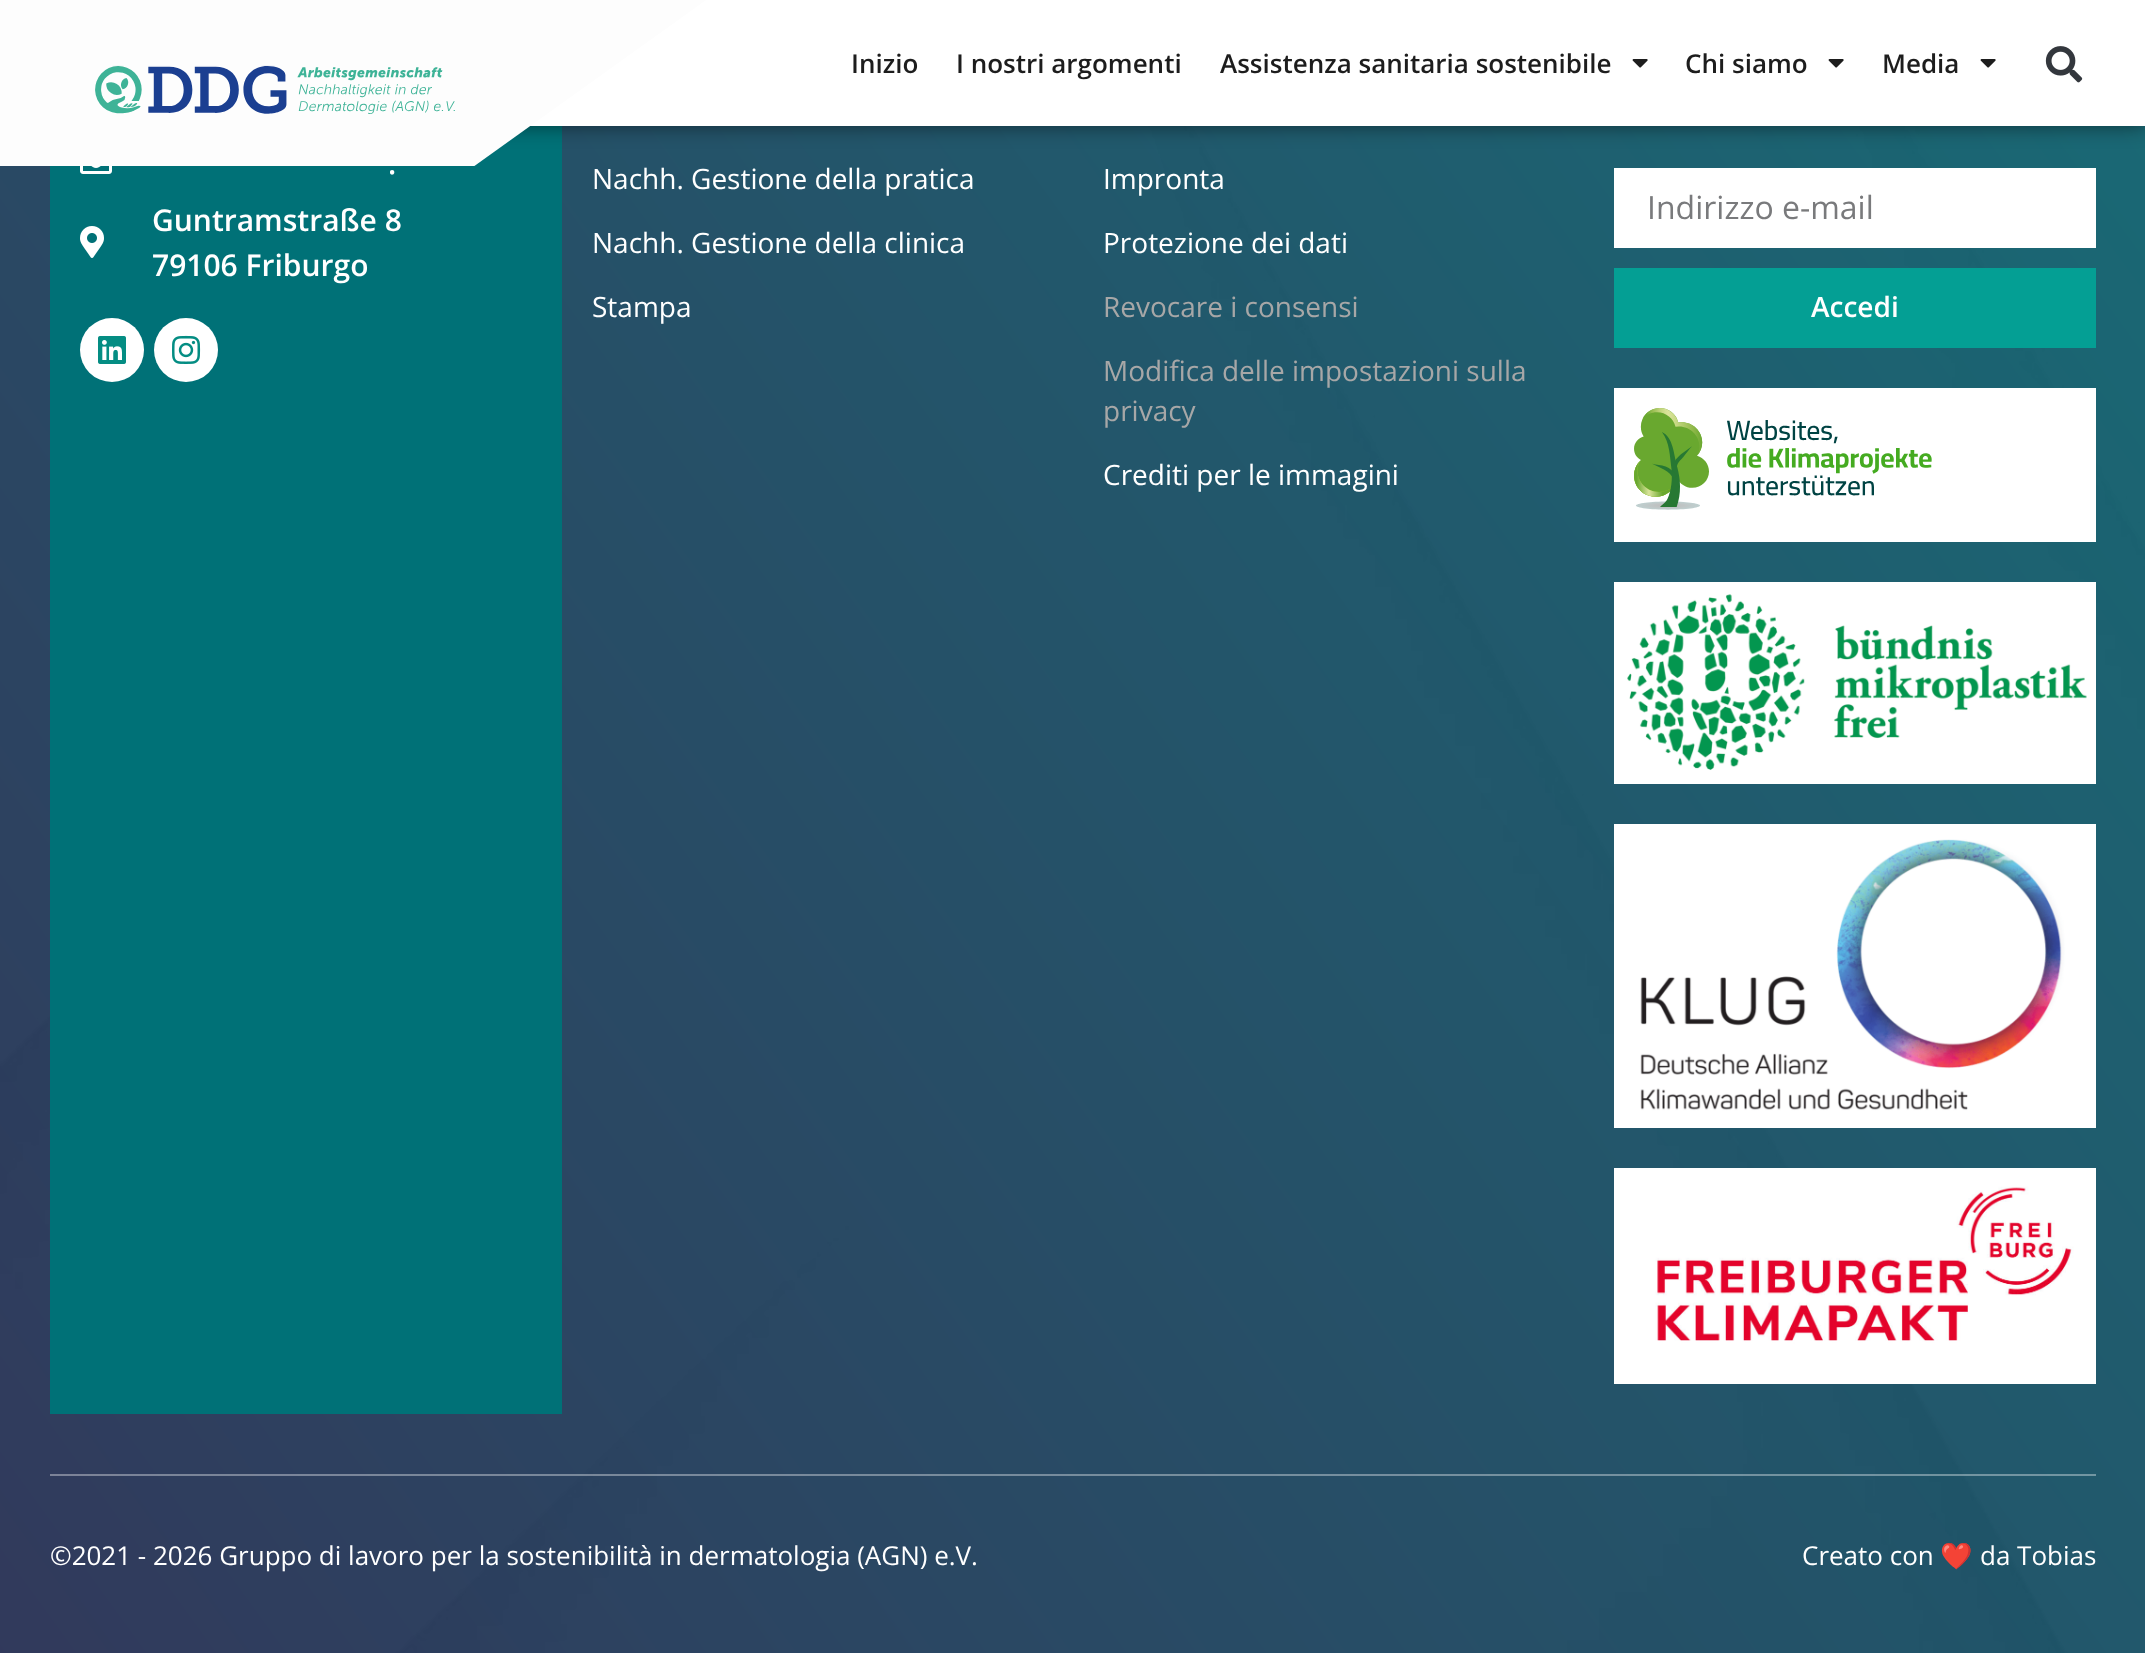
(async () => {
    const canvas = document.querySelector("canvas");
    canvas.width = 2145;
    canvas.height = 1653;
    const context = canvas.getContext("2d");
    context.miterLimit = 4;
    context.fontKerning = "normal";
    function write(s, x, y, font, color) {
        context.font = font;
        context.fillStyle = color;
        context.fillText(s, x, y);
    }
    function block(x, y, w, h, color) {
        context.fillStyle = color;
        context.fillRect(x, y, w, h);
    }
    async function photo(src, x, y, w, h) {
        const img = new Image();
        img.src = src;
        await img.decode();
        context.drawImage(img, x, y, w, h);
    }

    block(0, 0, 2145, 1653, "rgb(255, 255, 255)");
    await photo("media/4.png", 0, 126, 2145, 1527);
    block(50, 126, 512, 1288, "rgb(0, 113, 119)");
    context.fillStyle = "rgba(0, 0, 0, 0.5)";
    context.filter = "blur(10px)";
    context.beginPath();
    context.rect(0, 0, 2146, 126);
    context.fill();
    context.filter = "none";
    block(530, 0, 1615, 126, "rgb(255, 255, 255)");
    context.save();
    context.beginPath();
    context.rect(0, 0, 762, 166);
    context.clip();
    context.fillStyle = "rgb(253, 253, 253)";
    context.beginPath();
    context.moveTo(-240, -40);
    context.lineTo(762, -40);
    context.lineTo(473, 167);
    context.lineTo(-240, 167);
    context.closePath();
    context.fill();
    context.restore();
    write("Inizio", 851, 73, "600 26px Open Sans", "rgb(29, 29, 29)");
    write("I nostri argomenti", 956, 73, "600 26px Open Sans", "rgb(29, 29, 29)");
    write("Assistenza sanitaria sostenibile", 1220, 73, "600 26px Open Sans", "rgb(29, 29, 29)");
    await photo("media/1.png", 1632, 59, 16, 9);
    write("Chi siamo", 1685, 73, "600 26px Open Sans", "rgb(29, 29, 29)");
    await photo("media/1.png", 1828, 59, 16, 9);
    write("Media", 1882, 73, "600 26px Open Sans", "rgb(29, 29, 29)");
    await photo("media/1.png", 1980, 59, 16, 9);
    await photo("media/2.png", 2045, 46, 38, 37);
    await photo("media/3.png", 95, 65, 360, 49);
    await photo("media/5.png", 80, 166, 32, 8);
    write(".", 388, 174, "600 30px Open Sans", "rgb(255, 255, 255)");
    await photo("media/6.png", 80, 226, 24, 32);
    write("Guntramstraße 8", 152, 231, "600 30px Open Sans", "rgb(255, 255, 255)");
    write("79106 Friburgo", 152, 276, "600 30px Open Sans", "rgb(255, 255, 255)");
    context.beginPath();
    context.arc(112, 350, 32, 0, Math.PI * 2);
    context.fill();
    await photo("media/7.png", 98, 336, 28, 28);
    context.beginPath();
    context.arc(186, 350, 32, 0, Math.PI * 2);
    context.fill();
    await photo("media/8.png", 172, 335, 29, 29);
    write("Nachh. Gestione della pratica", 592, 189, "28px Open Sans", "rgb(255, 255, 255)");
    write("Nachh. Gestione della clinica", 592, 253, "28px Open Sans", "rgb(255, 255, 255)");
    write("Stampa", 592, 317, "28px Open Sans", "rgb(255, 255, 255)");
    write("Impronta", 1103, 189, "28px Open Sans", "rgb(255, 255, 255)");
    write("Protezione dei dati", 1103, 253, "28px Open Sans", "rgb(255, 255, 255)");
    write("Revocare i consensi", 1103, 317, "28px Open Sans", "rgb(167, 167, 167)");
    write("Modifica delle impostazioni sulla", 1103, 381, "28px Open Sans", "rgb(167, 167, 167)");
    write("privacy", 1103, 421, "28px Open Sans", "rgb(167, 167, 167)");
    write("Crediti per le immagini", 1103, 485, "28px Open Sans", "rgb(255, 255, 255)");
    block(1614, 168, 482, 80, "rgb(255, 255, 255)");
    write("Indirizzo e-mail", 1647, 219, "32px Open Sans", "rgb(121, 122, 124)");
    block(1614, 268, 482, 80, "rgb(4, 159, 148)");
    write("Accedi", 1811, 317, "600 28px Open Sans", "rgb(255, 255, 255)");
    block(1614, 388, 482, 154, "rgb(255, 255, 255)");
    await photo("media/9.png", 1634, 408, 298, 102);
    await photo("media/10.png", 1614, 582, 482, 202);
    await photo("media/11.png", 1614, 824, 482, 304);
    await photo("media/12.png", 1614, 1168, 482, 216);
    block(50, 1474, 2046, 2, "rgba(255, 255, 255, 0.37)");
    write("©2021 - 2026 Gruppo di lavoro per la sostenibilità in dermatologia (AGN) e.V.", 50, 1565, "26px Open Sans", "rgb(255, 255, 255)");
    write("Creato con", 1802, 1565, "26px Open Sans", "rgb(255, 255, 255)");
    write("❤️", 1940, 1565, "26px Noto Color Emoji", "rgb(255, 255, 255)");
    write("da Tobias", 1980, 1565, "26px Open Sans", "rgb(255, 255, 255)");
})();
